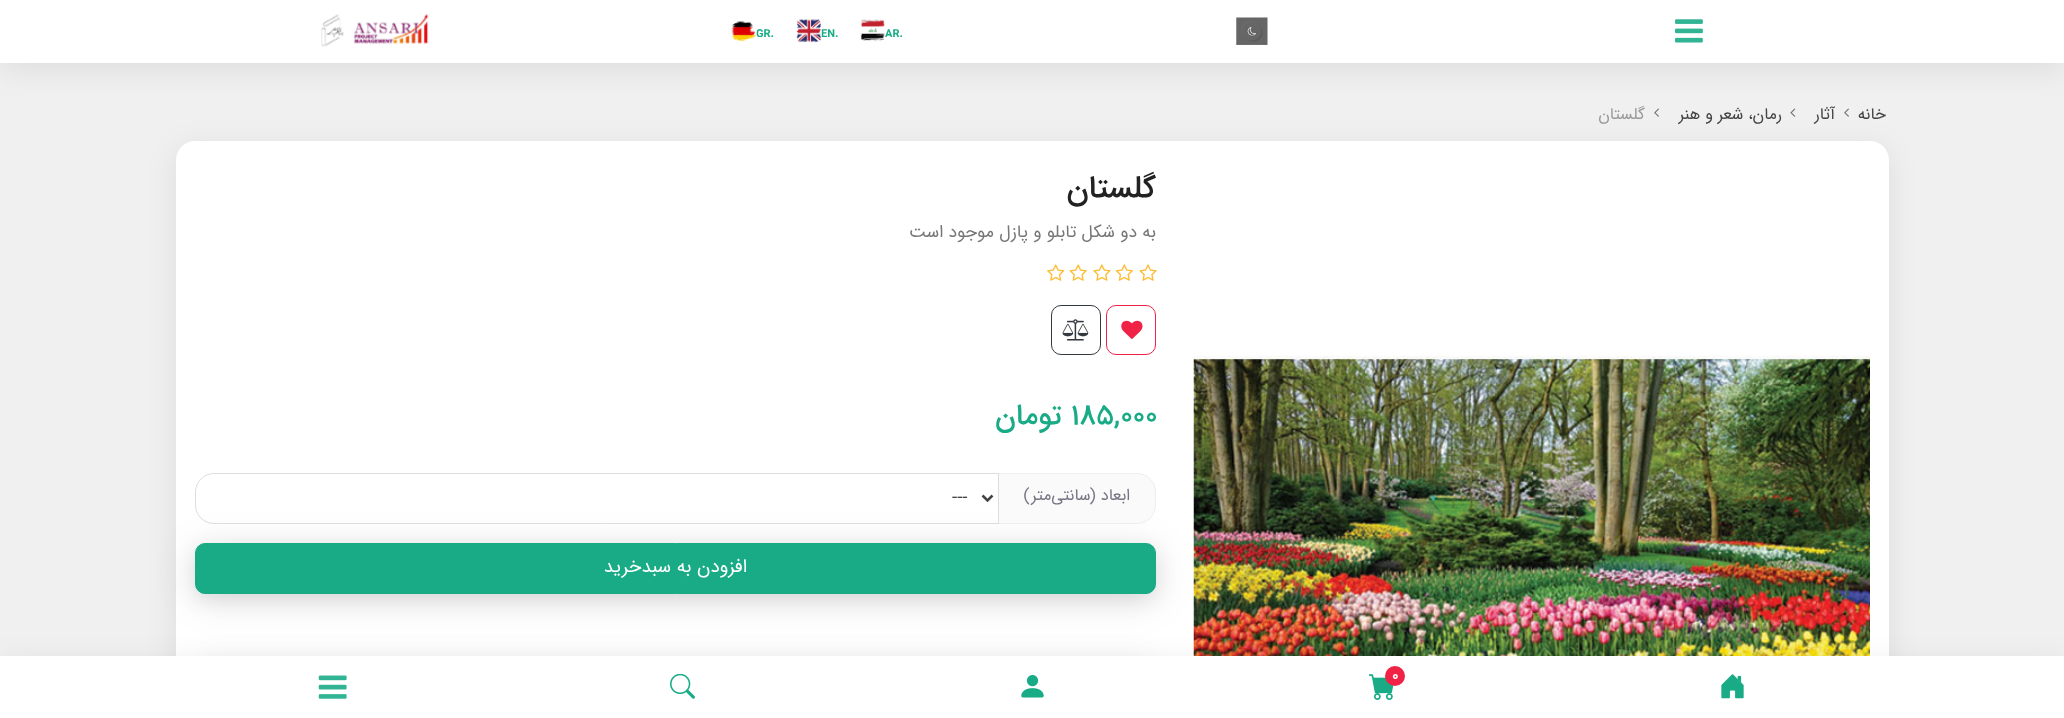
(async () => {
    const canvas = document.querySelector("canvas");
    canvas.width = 2064;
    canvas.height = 718;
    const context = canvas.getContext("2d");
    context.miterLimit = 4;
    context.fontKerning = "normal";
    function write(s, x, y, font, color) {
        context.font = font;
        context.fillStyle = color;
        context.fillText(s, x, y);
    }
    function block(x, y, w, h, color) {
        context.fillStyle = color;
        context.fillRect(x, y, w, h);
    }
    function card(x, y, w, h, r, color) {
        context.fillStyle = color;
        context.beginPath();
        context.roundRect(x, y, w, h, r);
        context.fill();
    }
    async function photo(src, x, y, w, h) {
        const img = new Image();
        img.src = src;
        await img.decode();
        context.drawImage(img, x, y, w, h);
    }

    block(0, 0, 2064, 718, "rgb(240, 240, 240)");
    context.fillStyle = "rgba(0, 0, 0, 0.08)";
    context.filter = "blur(15.5px)";
    context.beginPath();
    context.roundRect(176, 148, 1713, 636, 19);
    context.fill();
    context.filter = "none";
    await photo("media/8.png", 1844, 108, 5, 9);
    await photo("media/9.png", 1790, 108, 6, 9);
    await photo("media/8.png", 1654, 108, 5, 9);
    context.filter = "blur(15.5px)";
    context.beginPath();
    context.rect(0, 6, 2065, 63);
    context.fill();
    context.filter = "none";
    block(0, 0, 2064, 63, "rgb(255, 255, 255)");
    await photo("media/1.png", 1675, 19, 28, 24);
    await photo("media/2.png", 1236, 17, 32, 28);
    write("AR.", 885, 37, "bold 11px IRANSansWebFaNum", "rgb(25, 171, 134)");
    await photo("media/3.png", 860, 19, 26, 23);
    write("EN.", 821, 37, "bold 11px IRANSansWebFaNum", "rgb(25, 171, 134)");
    await photo("media/4.png", 796, 19, 26, 24);
    write("GR.", 756, 37, "bold 11px IRANSansWebFaNum", "rgb(25, 171, 134)");
    await photo("media/5.png", 731, 21, 26, 21);
    await photo("media/6.png", 354, 14, 75, 30);
    await photo("media/7.png", 321, 14, 23, 33);
    context.direction = "rtl";
    write("خانه", 1886, 119, "16.25px IRANSansWebFaNum", "rgb(68, 68, 68)");
    write("آثار", 1835, 119, "16.25px IRANSansWebFaNum", "rgb(68, 68, 68)");
    write("رمان‌‌، شعر و هنر", 1782, 119, "16.25px IRANSansWebFaNum", "rgb(68, 68, 68)");
    write("گلستان", 1645, 119, "16.25px IRANSansWebFaNum", "rgb(153, 153, 153)");
    card(176, 141, 1713, 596, 19, "rgb(255, 255, 255)");
    await photo("media/10.png", 1193, 355, 677, 301);
    write("گلستان", 1156, 197, "500 31px IRANSansWebFaNum", "rgb(34, 34, 34)");
    write("به دو شکل تابلو و پازل موجود است", 1156, 237, "17.5px IRANSansWebFaNum", "rgb(119, 119, 119)");
    await photo("media/11.png", 1139, 264, 18, 17);
    await photo("media/12.png", 1115, 264, 18, 17);
    await photo("media/13.png", 1093, 264, 18, 17);
    await photo("media/14.png", 1069, 264, 18, 17);
    await photo("media/15.png", 1047, 264, 18, 17);
    context.beginPath();
    context.roundRect(1106.5, 305.5, 49, 49, 9.5);
    context.strokeStyle = "rgb(240, 35, 71)";
    context.stroke();
    await photo("media/16.png", 1121, 320, 22, 19);
    context.beginPath();
    context.roundRect(1051.5, 305.5, 49, 49, 9.5);
    context.strokeStyle = "rgb(52, 58, 64)";
    context.stroke();
    await photo("media/17.png", 1062, 319, 27, 22);
    context.direction = "ltr";
    write("185,000", 1071, 424, "500 29px IRANSansWebFaNum", "rgb(25, 171, 134)");
    context.direction = "rtl";
    write("تومان", 1062, 424, "500 29px IRANSansWebFaNum", "rgb(25, 171, 134)");
    context.fillStyle = "rgba(0, 0, 0, 0.08)";
    context.filter = "blur(9.5px)";
    context.beginPath();
    context.roundRect(195, 549, 961, 51, 10);
    context.fill();
    context.filter = "none";
    context.fillStyle = "rgba(0, 0, 0, 0.11)";
    context.filter = "blur(19px)";
    context.beginPath();
    context.roundRect(195, 549, 961, 51, 10);
    context.fill();
    context.filter = "none";
    context.fillStyle = "rgb(250, 250, 250)";
    context.beginPath();
    context.roundRect(998.5, 473.5, 157, 50, [0, 18.5, 18.5, 0]);
    context.fill();
    context.strokeStyle = "rgb(238, 238, 238)";
    context.stroke();
    write("ابعاد (سانتی‌متر)", 1130, 500, "16.25px IRANSansWebFaNum", "rgb(117, 117, 132)");
    context.beginPath();
    context.roundRect(195.5, 473.5, 803, 50, [18.5, 0, 0, 18.5]);
    context.strokeStyle = "rgb(221, 221, 221)";
    context.stroke();
    context.beginPath();
    context.moveTo(982.5, 495.5);
    context.lineTo(987.5, 500.5);
    context.lineTo(992.5, 495.5);
    context.strokeStyle = "rgb(68, 68, 68)";
    context.lineWidth = 2.5;
    context.stroke();
    context.direction = "ltr";
    write("---", 952, 503, "18.75px IRANSansWebFaNum", "rgb(68, 68, 68)");
    context.fillStyle = "rgb(25, 171, 134)";
    context.beginPath();
    context.roundRect(195.5, 543.5, 960, 50, 9.5);
    context.fill();
    context.strokeStyle = "rgb(25, 171, 134)";
    context.lineWidth = 1;
    context.stroke();
    context.direction = "rtl";
    write("افزودن به سبدخرید", 747, 572, "18.75px IRANSansWebFaNum", "rgb(255, 255, 255)");
    context.fillStyle = "rgba(0, 0, 0, 0.08)";
    context.filter = "blur(15.5px)";
    context.beginPath();
    context.roundRect(195, 663, 961, 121, 19);
    context.fill();
    context.filter = "none";
    context.filter = "blur(15.5px)";
    context.beginPath();
    context.rect(0, 663, 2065, 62);
    context.fill();
    context.filter = "none";
    block(0, 656, 2064, 62, "rgb(255, 255, 255)");
    await photo("media/18.png", 1721, 674, 23, 25);
    await photo("media/19.png", 1369, 674, 25, 26);
    context.fillStyle = "rgb(240, 35, 71)";
    context.beginPath();
    context.arc(1395, 676, 10, 0, Math.PI * 2);
    context.fill();
    context.direction = "ltr";
    write("0", 1392, 680, "bold 15px IRANSansWebFaNum", "rgb(255, 255, 255)");
    await photo("media/20.png", 1021, 675, 23, 23);
    await photo("media/21.png", 670, 674, 25, 25);
    await photo("media/22.png", 318, 675, 29, 24);
})();
